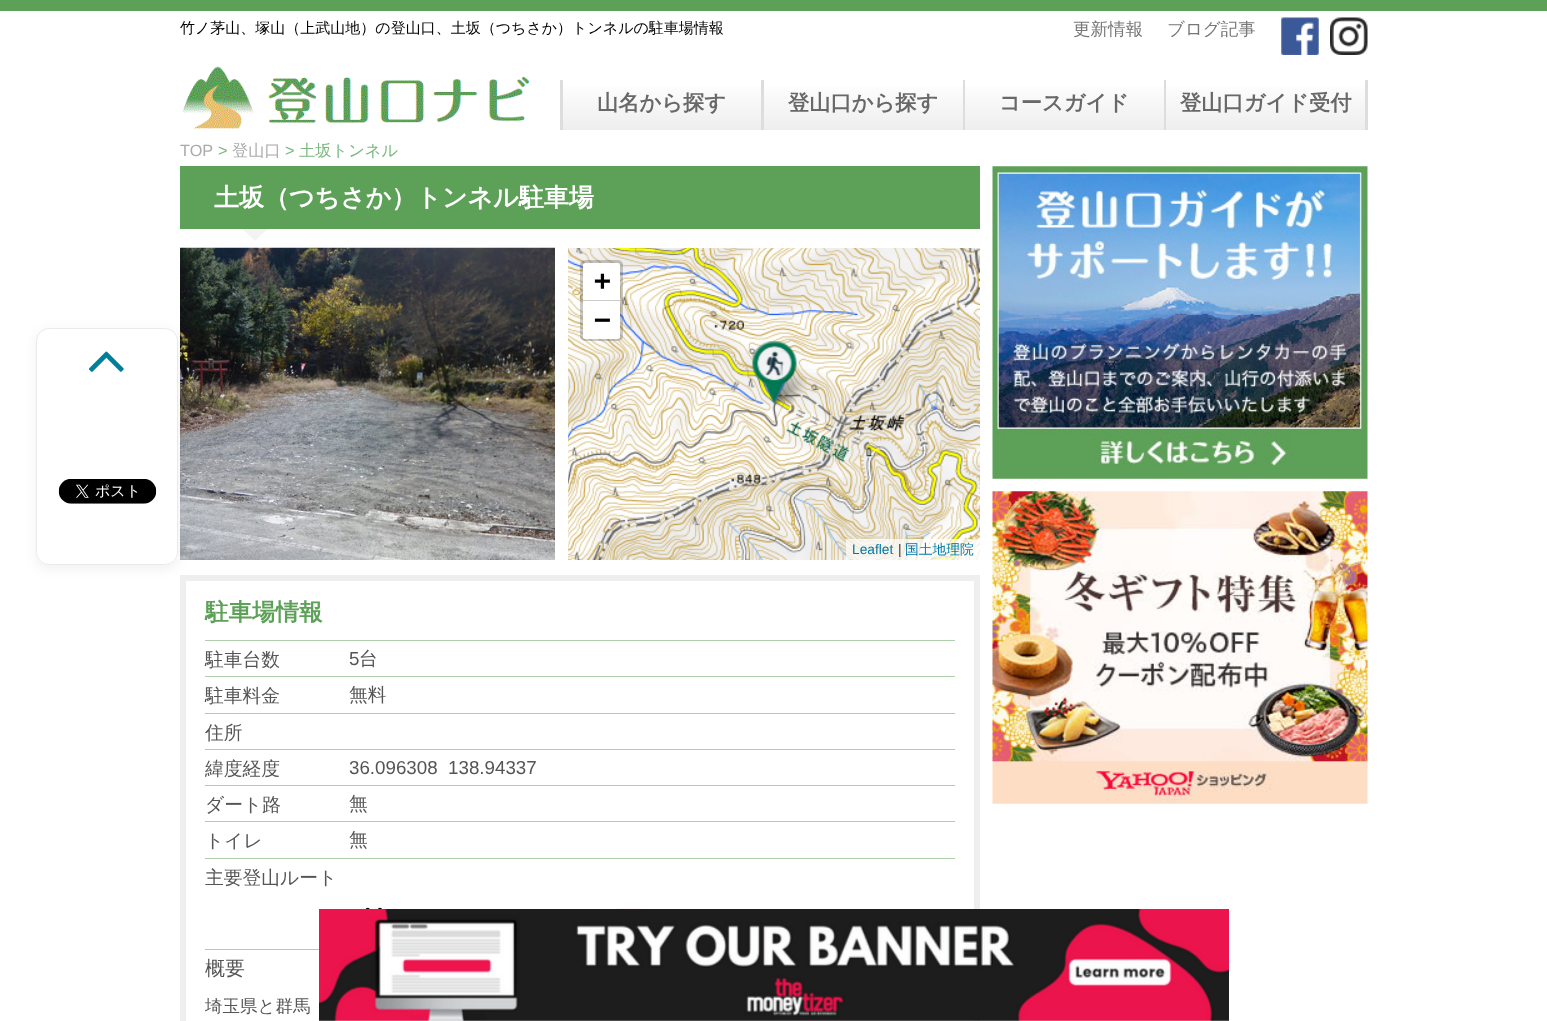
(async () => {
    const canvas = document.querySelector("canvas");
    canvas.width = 1547;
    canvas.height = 1021;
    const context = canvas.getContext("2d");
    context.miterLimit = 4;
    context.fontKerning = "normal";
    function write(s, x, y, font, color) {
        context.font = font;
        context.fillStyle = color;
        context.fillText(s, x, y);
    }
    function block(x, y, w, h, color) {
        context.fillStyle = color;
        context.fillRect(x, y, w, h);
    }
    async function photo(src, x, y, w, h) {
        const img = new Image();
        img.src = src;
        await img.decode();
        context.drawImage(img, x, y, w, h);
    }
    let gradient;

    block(0, 0, 1547, 1021, "rgb(255, 255, 255)");
    block(0, 0, 1547, 11, "rgb(93, 160, 88)");
    write("竹ノ茅山、塚山（上武山地）の登山口、土坂（つちさか）トンネルの駐車場情報", 180, 33, "500 15px WenQuanYi Zen Hei", "rgb(0, 0, 0)");
    write("更新情報", 1073, 35, "500 17.5px WenQuanYi Zen Hei", "rgb(119, 119, 119)");
    write("ブログ記事", 1167, 35, "500 17.5px WenQuanYi Zen Hei", "rgb(119, 119, 119)");
    await photo("media/1.png", 1281, 17, 38, 38);
    await photo("media/2.png", 1330, 17, 38, 38);
    await photo("media/3.png", 182, 66, 348, 63);
    gradient = context.createLinearGradient(662, 80, 662, 130);
    gradient.addColorStop(0, "rgb(255, 255, 255)");
    gradient.addColorStop(1, "rgb(238, 238, 238)");
    context.fillStyle = gradient;
    context.fillRect(563, 87, 198, 43);
    block(761, 80, 3, 50, "rgb(221, 221, 221)");
    block(560, 80, 3, 50, "rgb(221, 221, 221)");
    write("山名から探す", 597, 110, "bold 21.25px WenQuanYi Zen Hei", "rgb(104, 104, 104)");
    gradient = context.createLinearGradient(863, 80, 863, 130);
    gradient.addColorStop(0, "rgb(255, 255, 255)");
    gradient.addColorStop(1, "rgb(238, 238, 238)");
    context.fillStyle = gradient;
    context.fillRect(764, 87, 199, 43);
    block(963, 80, 2, 50, "rgb(221, 221, 221)");
    write("登山口から探す", 788, 110, "bold 21.25px WenQuanYi Zen Hei", "rgb(104, 104, 104)");
    gradient = context.createLinearGradient(1064, 80, 1064, 130);
    gradient.addColorStop(0, "rgb(255, 255, 255)");
    gradient.addColorStop(1, "rgb(238, 238, 238)");
    context.fillStyle = gradient;
    context.fillRect(965, 87, 199, 43);
    block(1164, 80, 2, 50, "rgb(221, 221, 221)");
    write("コースガイド", 999, 110, "bold 21.25px WenQuanYi Zen Hei", "rgb(104, 104, 104)");
    gradient = context.createLinearGradient(1266, 80, 1266, 130);
    gradient.addColorStop(0, "rgb(255, 255, 255)");
    gradient.addColorStop(1, "rgb(238, 238, 238)");
    context.fillStyle = gradient;
    context.fillRect(1166, 87, 199, 43);
    block(1365, 80, 3, 50, "rgb(221, 221, 221)");
    write("登山口ガイド受付", 1180, 110, "bold 21.25px WenQuanYi Zen Hei", "rgb(104, 104, 104)");
    write("TOP", 180, 156, "16.25px Liberation Sans", "rgb(170, 170, 170)");
    write(">", 218, 156, "16.25px Liberation Sans", "rgb(122, 185, 128)");
    write("登山口", 232, 156, "500 16.25px WenQuanYi Zen Hei", "rgb(170, 170, 170)");
    write(">", 285, 156, "16.25px Liberation Sans", "rgb(122, 185, 128)");
    write("土坂トンネル", 299, 156, "500 16.25px WenQuanYi Zen Hei", "rgb(122, 185, 128)");
    await photo("media/6.png", 180, 247, 375, 313);
    context.strokeStyle = "rgb(238, 238, 238)";
    context.lineWidth = 6;
    context.strokeRect(183, 578, 794, 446);
    context.save();
    context.beginPath();
    context.moveTo(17, 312);
    context.lineTo(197, 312);
    context.lineTo(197, 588);
    context.lineTo(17, 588);
    context.closePath();
    context.moveTo(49, 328);
    context.lineTo(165, 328);
    context.bezierCurveTo(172, 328, 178, 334, 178, 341);
    context.lineTo(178, 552);
    context.bezierCurveTo(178, 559, 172, 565, 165, 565);
    context.lineTo(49, 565);
    context.bezierCurveTo(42, 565, 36, 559, 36, 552);
    context.lineTo(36, 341);
    context.bezierCurveTo(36, 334, 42, 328, 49, 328);
    context.closePath();
    context.clip("evenodd");
    context.fillStyle = "rgba(0, 0, 0, 0.05)";
    context.filter = "blur(5.5px)";
    context.beginPath();
    context.roundRect(35, 330, 144, 240, 14);
    context.fill();
    context.filter = "none";
    context.restore();
    context.beginPath();
    context.roundRect(36.5, 328.5, 141, 236, 12.5);
    context.strokeStyle = "rgb(234, 234, 234)";
    context.lineWidth = 1;
    context.stroke();
    await photo("media/4.png", 89, 351, 35, 21);
    await photo("media/5.png", 58, 479, 99, 25);
    block(180, 166, 800, 63, "rgb(93, 160, 88)");
    write("土坂（つちさか）トンネル駐車場", 214, 206, "bold 25px WenQuanYi Zen Hei", "rgb(255, 255, 255)");
    context.fillStyle = "rgb(243, 243, 243)";
    context.beginPath();
    context.moveTo(242.5, 229);
    context.lineTo(267.5, 229);
    context.lineTo(255, 241);
    context.closePath();
    context.fill();
    await photo("media/7.png", 568, 248, 227, 257);
    await photo("media/8.png", 795, 248, 185, 257);
    await photo("media/9.png", 568, 504, 227, 56);
    await photo("media/10.png", 795, 504, 185, 56);
    await photo("media/13.png", 770, 370, 37, 34);
    await photo("media/12.png", 758, 371, 32, 33);
    await photo("media/11.png", 752, 341, 45, 63);
    context.beginPath();
    context.roundRect(581.5, 261.5, 40, 78, 3.5);
    context.strokeStyle = "rgba(0, 0, 0, 0.2)";
    context.lineWidth = 3;
    context.stroke();
    context.fillStyle = "rgb(255, 255, 255)";
    context.beginPath();
    context.roundRect(583, 263, 37, 38, [2.5, 2.5, 0, 0]);
    context.fill();
    block(583, 300, 37, 1, "rgb(204, 204, 204)");
    write("+", 594, 290, "bold 28px DejaVu Sans Mono", "rgb(0, 0, 0)");
    context.fillStyle = "rgb(255, 255, 255)";
    context.beginPath();
    context.roundRect(583, 301, 37, 38, [0, 0, 2.5, 2.5]);
    context.fill();
    write("−", 594, 329, "bold 28px DejaVu Sans Mono", "rgb(0, 0, 0)");
    block(846, 539, 134, 21, "rgba(255, 255, 255, 0.7)");
    write("Leaflet", 852, 554, "13.75px Liberation Sans", "rgb(0, 120, 168)");
    write("|", 898, 554, "13.75px Liberation Sans", "rgb(51, 51, 51)");
    write("国土地理院", 905, 554, "500 13.75px WenQuanYi Zen Hei", "rgb(0, 120, 168)");
    write("駐車場情報", 205, 620, "bold 23.5px WenQuanYi Zen Hei", "rgb(93, 160, 88)");
    write("駐車台数", 205, 666, "500 18.75px WenQuanYi Zen Hei", "rgb(85, 85, 85)");
    block(205, 640, 750, 1, "rgb(174, 207, 171)");
    write("5", 349, 665, "18.75px Liberation Sans", "rgb(85, 85, 85)");
    write("台", 359, 665, "500 18.75px WenQuanYi Zen Hei", "rgb(85, 85, 85)");
    write("駐車料金", 205, 702, "500 18.75px WenQuanYi Zen Hei", "rgb(85, 85, 85)");
    block(205, 676, 750, 1, "rgb(174, 207, 171)");
    write("無料", 349, 701, "500 18.75px WenQuanYi Zen Hei", "rgb(85, 85, 85)");
    block(205, 713, 750, 1, "rgb(174, 207, 171)");
    write("住所", 205, 739, "500 18.75px WenQuanYi Zen Hei", "rgb(85, 85, 85)");
    write("緯度経度", 205, 775, "500 18.75px WenQuanYi Zen Hei", "rgb(85, 85, 85)");
    block(205, 749, 750, 1, "rgb(174, 207, 171)");
    write("36.096308  138.94337", 349, 774, "18.75px Liberation Sans", "rgb(85, 85, 85)");
    write("ダート路", 205, 811, "500 18.75px WenQuanYi Zen Hei", "rgb(85, 85, 85)");
    block(205, 785, 750, 1, "rgb(174, 207, 171)");
    write("無", 349, 810, "500 18.75px WenQuanYi Zen Hei", "rgb(85, 85, 85)");
    write("トイレ", 205, 847, "500 18.75px WenQuanYi Zen Hei", "rgb(85, 85, 85)");
    block(205, 821, 750, 1, "rgb(174, 207, 171)");
    write("無", 349, 846, "500 18.75px WenQuanYi Zen Hei", "rgb(85, 85, 85)");
    block(205, 858, 750, 1, "rgb(174, 207, 171)");
    write("主要登山ルート", 205, 884, "500 18.75px WenQuanYi Zen Hei", "rgb(85, 85, 85)");
    await photo("media/14.png", 361, 907, 26, 2);
    await photo("media/15.png", 616, 908, 26, 1);
    block(205, 949, 114, 1, "rgb(174, 207, 171)");
    write("概要", 205, 975, "500 20px WenQuanYi Zen Hei", "rgb(85, 85, 85)");
    write("埼玉県と群馬", 205, 1012, "500 17.5px WenQuanYi Zen Hei", "rgb(85, 85, 85)");
    await photo("media/16.png", 992, 166, 376, 313);
    await photo("media/17.png", 992, 491, 376, 313);
    await photo("media/18.png", 319, 909, 910, 112);
})();
